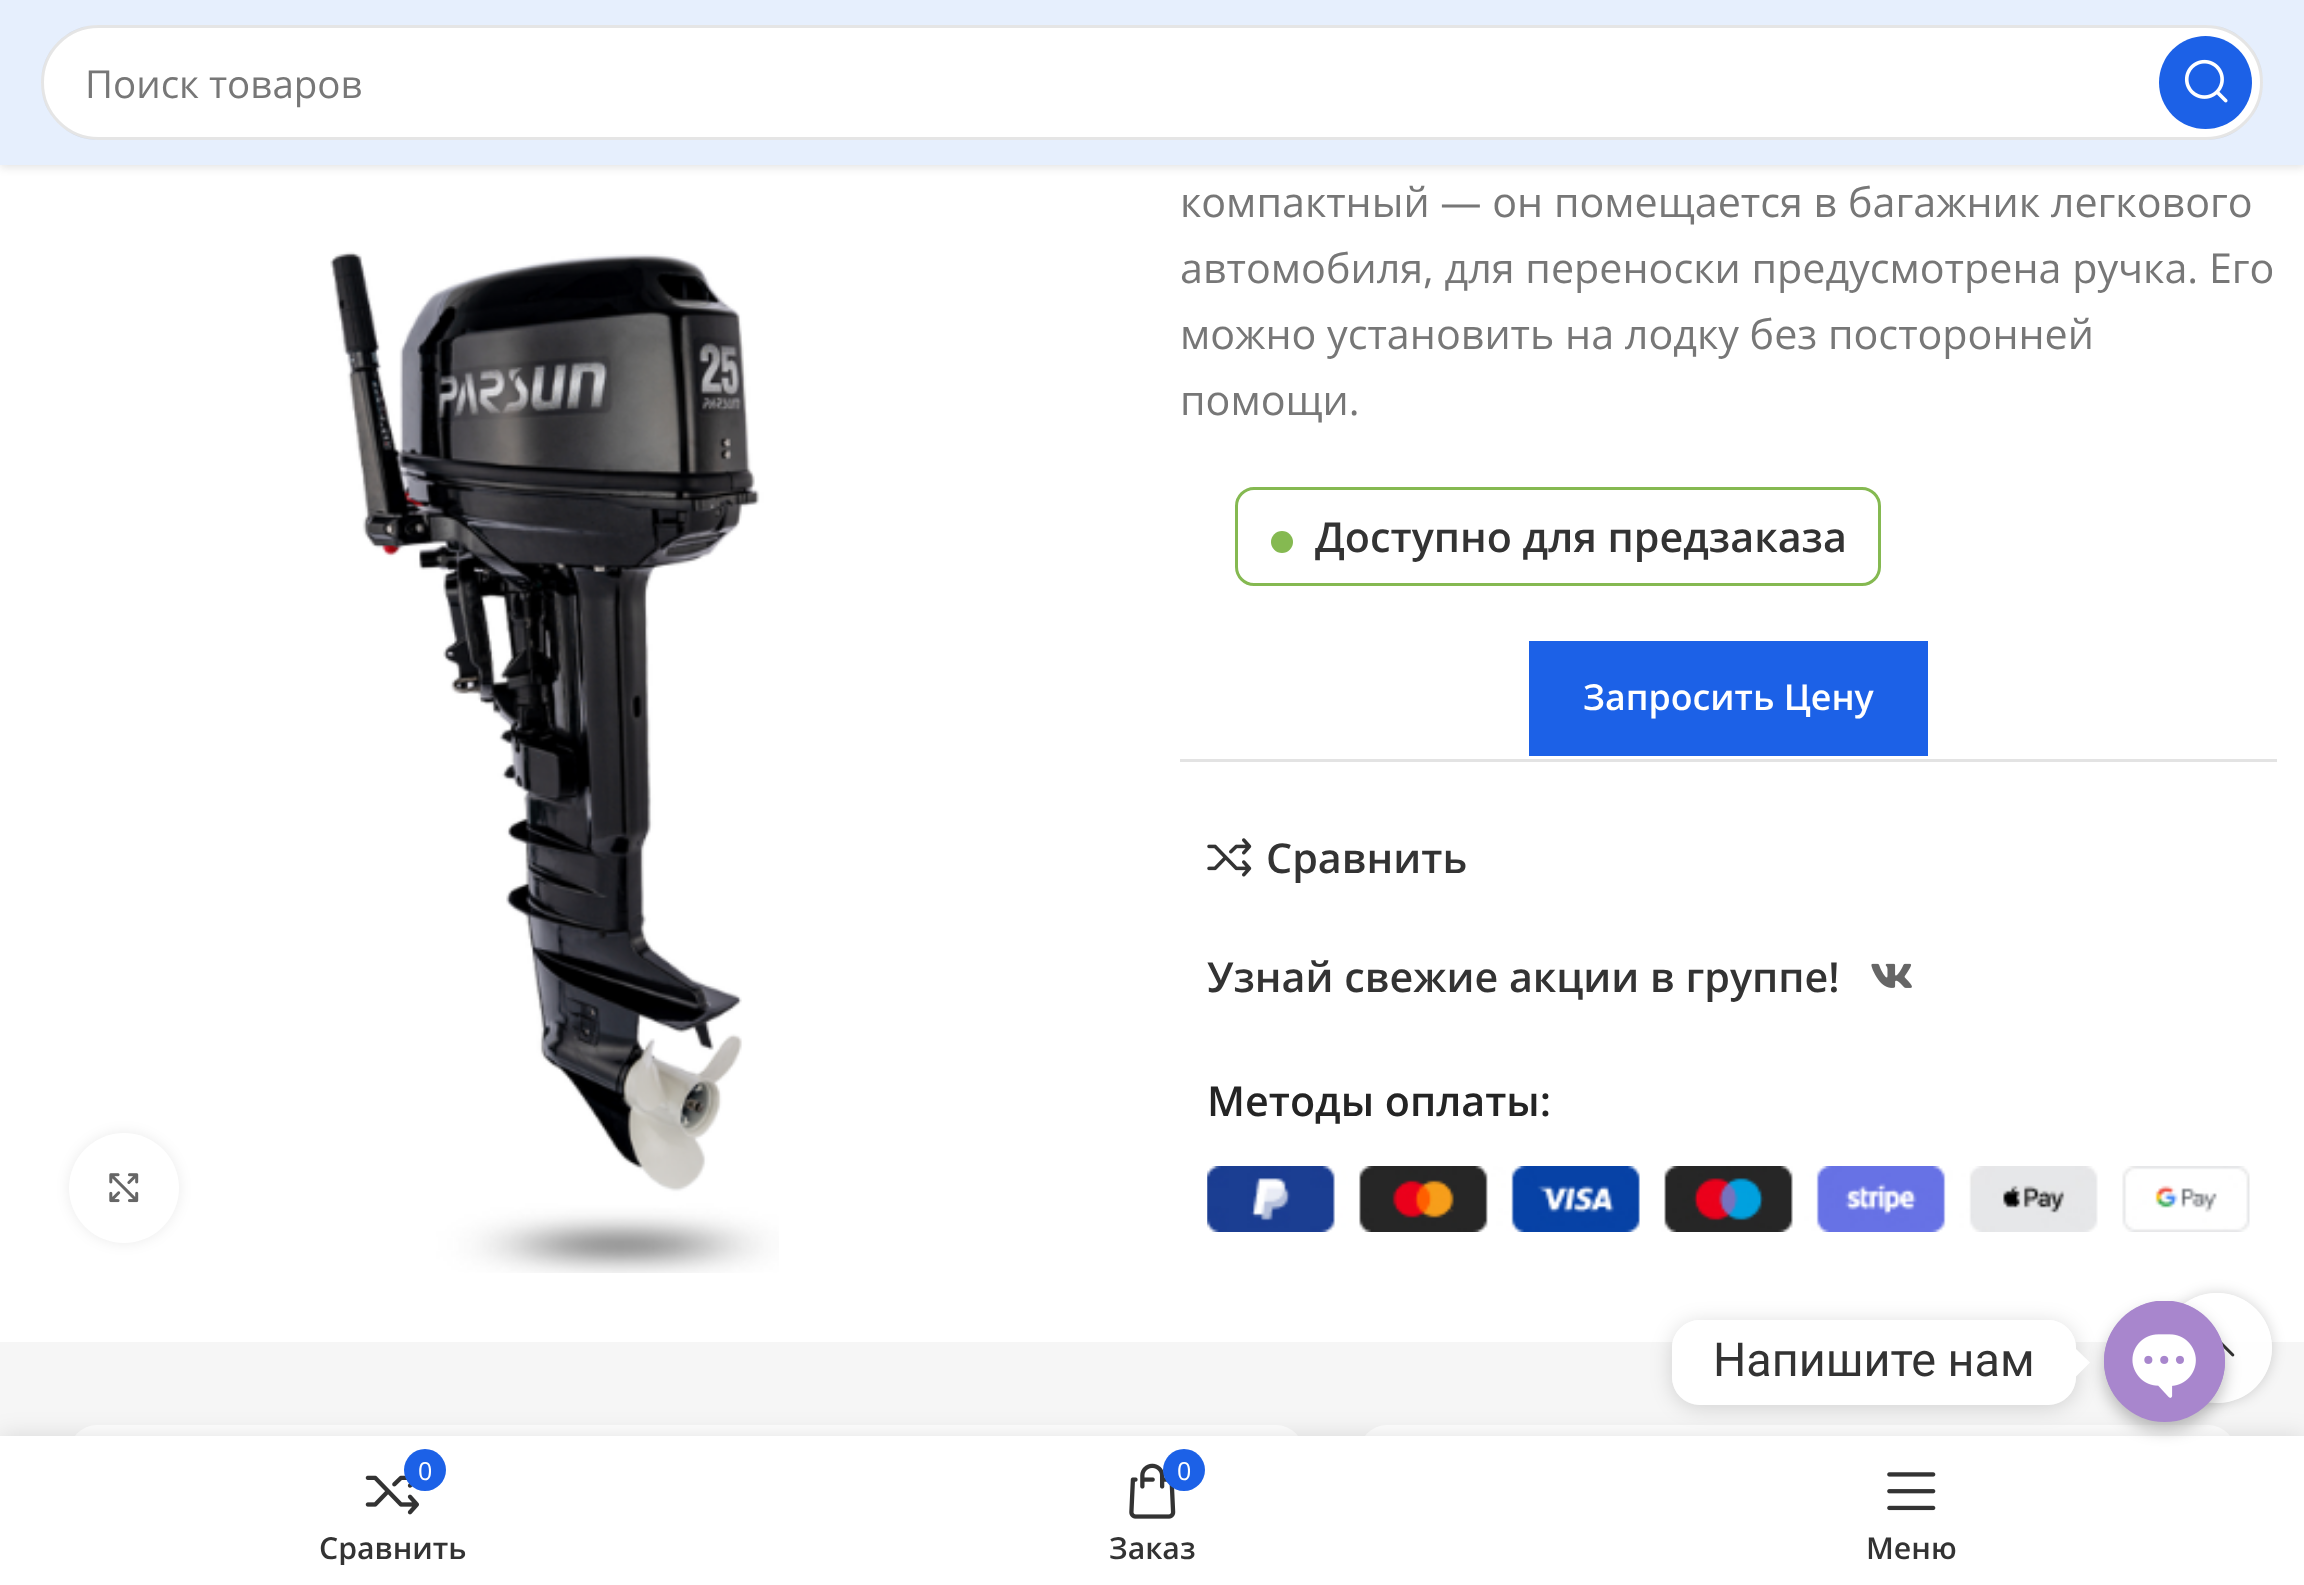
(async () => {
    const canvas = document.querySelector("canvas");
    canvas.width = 2304;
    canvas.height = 1585;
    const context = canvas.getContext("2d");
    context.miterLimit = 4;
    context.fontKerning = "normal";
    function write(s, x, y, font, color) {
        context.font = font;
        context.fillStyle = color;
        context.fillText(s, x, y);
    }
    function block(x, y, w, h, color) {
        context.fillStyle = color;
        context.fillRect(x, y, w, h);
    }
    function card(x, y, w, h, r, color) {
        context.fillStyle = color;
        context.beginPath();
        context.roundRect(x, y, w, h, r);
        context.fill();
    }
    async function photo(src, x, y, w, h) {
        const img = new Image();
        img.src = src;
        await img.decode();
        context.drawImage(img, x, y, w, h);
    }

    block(0, 0, 2304, 1585, "rgb(246, 246, 246)");
    block(0, 165, 2304, 1177, "rgb(255, 255, 255)");
    context.fillStyle = "rgba(0, 0, 0, 0.1)";
    context.filter = "blur(4px)";
    context.beginPath();
    context.rect(0, 3, 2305, 165);
    context.fill();
    context.filter = "none";
    block(0, 0, 2304, 165, "rgb(230, 239, 253)");
    card(41, 25, 2222, 115, 57.5, "rgb(255, 255, 255)");
    context.beginPath();
    context.roundRect(42.5, 26.5, 2219, 112, 56);
    context.strokeStyle = "rgba(0, 0, 0, 0.1)";
    context.lineWidth = 3;
    context.stroke();
    write("Поиск товаров", 85, 98, "38.5px Open Sans", "rgb(119, 119, 119)");
    context.fillStyle = "rgb(28, 97, 231)";
    context.beginPath();
    context.arc(2205.5, 82.5, 46.5, 0, Math.PI * 2);
    context.fill();
    await photo("media/1.png", 2184, 59, 44, 44);
    context.fillStyle = "rgba(0, 0, 0, 0.08)";
    context.filter = "blur(7px)";
    context.beginPath();
    context.roundRect(69, 1133, 110, 110, 55);
    context.fill();
    context.filter = "none";
    context.fillStyle = "rgb(255, 255, 255)";
    context.beginPath();
    context.arc(124, 1188, 55, 0, Math.PI * 2);
    context.fill();
    await photo("media/2.png", 109, 1173, 30, 30);
    await photo("media/3.png", 330, 251, 449, 1022);
    write("компактный — он помещается в багажник легкового", 1180, 217, "41.25px Open Sans", "rgb(119, 119, 119)");
    write("автомобиля, для переноски предусмотрена ручка. Его", 1180, 283, "41.25px Open Sans", "rgb(119, 119, 119)");
    write("можно установить на лодку без посторонней", 1180, 349, "41.25px Open Sans", "rgb(119, 119, 119)");
    write("помощи.", 1180, 415, "41.25px Open Sans", "rgb(119, 119, 119)");
    context.beginPath();
    context.roundRect(1236.5, 488.5, 643, 96, 17.5);
    context.strokeStyle = "rgb(133, 185, 81)";
    context.stroke();
    context.fillStyle = "rgb(133, 185, 81)";
    context.beginPath();
    context.arc(1282, 542, 11, 0, Math.PI * 2);
    context.fill();
    write("Доступно для предзаказа", 1315, 552, "600 41.25px Open Sans", "rgb(51, 51, 51)");
    block(1529, 641, 399, 115, "rgb(28, 97, 231)");
    write("Запросить Цену", 1583, 710, "600 35.75px Open Sans", "rgb(255, 255, 255)");
    block(1180, 759, 1097, 3, "rgb(227, 227, 227)");
    await photo("media/4.png", 1207, 838, 45, 39);
    write("Сравнить", 1266, 873, "600 41.25px Open Sans", "rgb(51, 51, 51)");
    write("Узнай свежие акции в группе!", 1207, 992, "600 41.25px Open Sans", "rgb(51, 51, 51)");
    await photo("media/5.png", 1871, 963, 41, 25);
    write("Методы оплаты:", 1207, 1116, "600 41.25px Open Sans", "rgb(36, 36, 36)");
    await photo("media/6.png", 1207, 1166, 1043, 66);
    card(69, 1425, 1235, 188, 28, "rgb(255, 255, 255)");
    card(1359, 1425, 877, 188, 28, "rgb(255, 255, 255)");
    context.save();
    context.beginPath();
    context.moveTo(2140, 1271);
    context.lineTo(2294, 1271);
    context.lineTo(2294, 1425);
    context.lineTo(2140, 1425);
    context.closePath();
    context.moveTo(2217, 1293);
    context.bezierCurveTo(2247.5, 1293, 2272, 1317.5, 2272, 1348);
    context.bezierCurveTo(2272, 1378.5, 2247.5, 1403, 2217, 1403);
    context.bezierCurveTo(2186.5, 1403, 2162, 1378.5, 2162, 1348);
    context.bezierCurveTo(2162, 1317.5, 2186.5, 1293, 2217, 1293);
    context.closePath();
    context.clip("evenodd");
    context.fillStyle = "rgba(0, 0, 0, 0.17)";
    context.filter = "blur(7px)";
    context.beginPath();
    context.roundRect(2162, 1293, 110, 110, 55);
    context.fill();
    context.filter = "none";
    context.restore();
    context.fillStyle = "rgba(255, 255, 255, 0.9)";
    context.beginPath();
    context.arc(2217, 1348, 55, 0, Math.PI * 2);
    context.fill();
    context.fillStyle = "rgba(0, 0, 0, 0.12)";
    context.filter = "blur(12.5px)";
    context.beginPath();
    context.rect(0, 1436, 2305, 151);
    context.fill();
    context.filter = "none";
    block(0, 1436, 2304, 149, "rgb(255, 255, 255)");
    context.save();
    context.beginPath();
    context.moveTo(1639, 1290);
    context.lineTo(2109, 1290);
    context.lineTo(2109, 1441);
    context.lineTo(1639, 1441);
    context.closePath();
    context.moveTo(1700, 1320);
    context.lineTo(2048, 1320);
    context.bezierCurveTo(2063.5, 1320, 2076, 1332.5, 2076, 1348);
    context.lineTo(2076, 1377);
    context.bezierCurveTo(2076, 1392.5, 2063.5, 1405, 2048, 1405);
    context.lineTo(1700, 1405);
    context.bezierCurveTo(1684.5, 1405, 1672, 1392.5, 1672, 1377);
    context.lineTo(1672, 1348);
    context.bezierCurveTo(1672, 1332.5, 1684.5, 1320, 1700, 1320);
    context.closePath();
    context.clip("evenodd");
    context.fillStyle = "rgba(0, 0, 0, 0.15)";
    context.filter = "blur(10.5px)";
    context.beginPath();
    context.roundRect(1672, 1323, 404, 85, 28);
    context.fill();
    context.filter = "none";
    context.restore();
    card(1672, 1320, 404, 85, 28, "rgb(255, 255, 255)");
    write("Напишите нам", 1713, 1376, "46.75px Roboto", "rgb(51, 51, 51)");
    context.fillStyle = "rgb(255, 255, 255)";
    context.beginPath();
    context.moveTo(2076, 1376.5);
    context.lineTo(2076, 1349);
    context.lineTo(2090, 1362.5);
    context.closePath();
    context.fill();
    await photo("media/8.png", 2221, 1341, 14, 16);
    context.fillStyle = "rgba(0, 0, 0, 0.25)";
    context.filter = "blur(8px)";
    context.beginPath();
    context.roundRect(2104, 1309, 121, 121, 60.5);
    context.fill();
    context.filter = "none";
    context.fillStyle = "rgb(168, 134, 205)";
    context.beginPath();
    context.arc(2164.5, 1361.5, 60.5, 0, Math.PI * 2);
    context.fill();
    await photo("media/7.png", 2104, 1301, 121, 97);
    await photo("media/9.png", 365, 1475, 54, 40);
    context.fillStyle = "rgb(28, 97, 231)";
    context.beginPath();
    context.arc(425, 1470, 21, 0, Math.PI * 2);
    context.fill();
    write("0", 418, 1480, "25px Open Sans", "rgb(255, 255, 255)");
    context.save();
    context.beginPath();
    context.rect(41, 1529, 704, 36);
    context.clip();
    write("Сравнить", 319, 1559, "600 30.25px Open Sans", "rgb(51, 51, 51)");
    context.restore();
    await photo("media/10.png", 1129, 1463, 47, 56);
    context.fillStyle = "rgb(28, 97, 231)";
    context.beginPath();
    context.arc(1184, 1470, 21, 0, Math.PI * 2);
    context.fill();
    write("0", 1177, 1480, "25px Open Sans", "rgb(255, 255, 255)");
    write("Заказ", 1109, 1559, "600 30.25px Open Sans", "rgb(51, 51, 51)");
    await photo("media/11.png", 1887, 1472, 49, 39);
    write("Меню", 1866, 1559, "600 30.25px Open Sans", "rgb(51, 51, 51)");
})();
